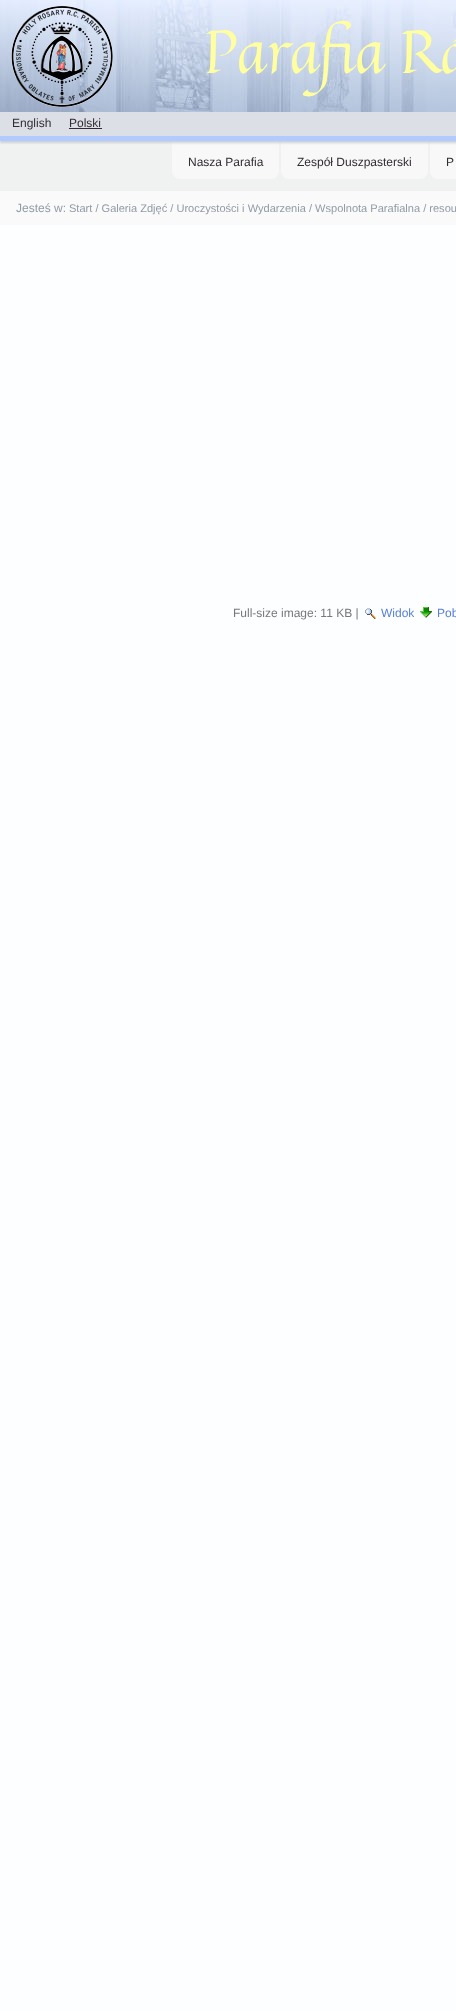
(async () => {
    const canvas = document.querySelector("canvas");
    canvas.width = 456;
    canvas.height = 2011;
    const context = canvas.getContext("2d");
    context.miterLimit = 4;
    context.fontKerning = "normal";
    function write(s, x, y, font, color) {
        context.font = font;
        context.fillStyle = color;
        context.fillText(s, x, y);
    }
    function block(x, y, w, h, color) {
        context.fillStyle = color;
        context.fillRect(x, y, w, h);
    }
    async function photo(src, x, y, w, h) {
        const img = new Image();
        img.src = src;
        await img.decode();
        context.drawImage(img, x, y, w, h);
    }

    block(0, 0, 456, 2011, "rgb(253, 254, 255)");
    block(0, 141, 456, 50, "rgb(240, 242, 242)");
    await photo("media/1.png", 0, 0, 456, 112);
    await photo("media/2.png", 11, 6, 102, 102);
    write("Parafia Ró", 204, 73, "60px Quintessential", "rgb(255, 255, 159)");
    context.fillStyle = "rgb(248, 248, 248)";
    context.beginPath();
    context.roundRect(172, 141, 107, 38, [0, 0, 8, 8]);
    context.fill();
    context.beginPath();
    context.roundRect(281, 141, 147, 38, [0, 0, 8, 8]);
    context.fill();
    context.beginPath();
    context.moveTo(430, 141);
    context.lineTo(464, 141);
    context.lineTo(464, 171);
    context.bezierCurveTo(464, 175.5, 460.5, 179, 456, 179);
    context.lineTo(438, 179);
    context.bezierCurveTo(433.5, 179, 430, 175.5, 430, 171);
    context.closePath();
    context.fill();
    context.fillStyle = "rgb(204, 208, 214)";
    context.filter = "blur(1px)";
    context.beginPath();
    context.rect(0, 114, 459, 29);
    context.fill();
    context.filter = "none";
    block(0, 112, 456, 24, "rgb(220, 224, 230)");
    block(0, 136, 456, 5, "rgb(177, 203, 255)");
    write("English", 12, 127, "12px Liberation Sans", "rgb(51, 44, 52)");
    write("Polski", 69, 127, "12px Liberation Sans", "rgb(51, 44, 52)");
    block(69, 128, 33, 1, "rgb(51, 44, 52)");
    write("Nasza Parafia", 188, 166, "12px Liberation Sans", "rgb(51, 44, 52)");
    write("Zespół Duszpasterski", 297, 166, "12px Liberation Sans", "rgb(51, 44, 52)");
    write("P", 446, 166, "12px Liberation Sans", "rgb(51, 44, 52)");
    block(0, 191, 456, 34, "rgb(250, 250, 250)");
    write("Jesteś w:", 16, 212, "12px Liberation Sans", "rgb(146, 154, 166)");
    write("Start / Galeria Zdjęć / Uroczystości i Wydarzenia / Wspolnota Parafialna / resou", 69, 212, "11.05px Liberation Sans", "rgb(146, 154, 166)");
    write("Full-size image: 11 KB |", 233, 617, "12px Liberation Sans", "rgb(118, 121, 124)");
    await photo("media/3.png", 365, 608, 11, 11);
    write("Widok", 381, 617, "12px Liberation Sans", "rgb(89, 129, 210)");
    await photo("media/4.png", 420, 607, 12, 11);
    write("Pob", 437, 617, "12px Liberation Sans", "rgb(89, 129, 210)");
})();
